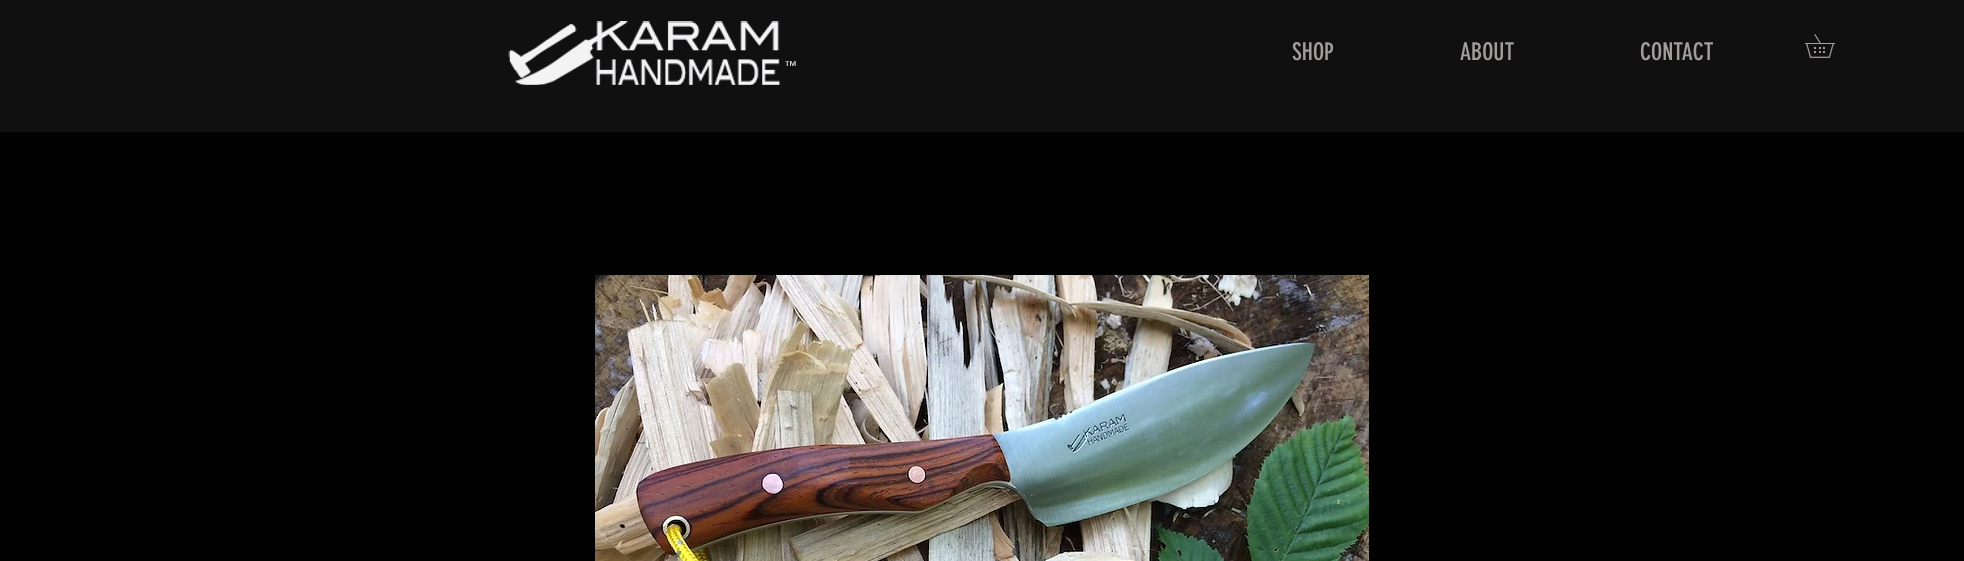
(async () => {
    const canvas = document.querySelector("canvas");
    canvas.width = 1964;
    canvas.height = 561;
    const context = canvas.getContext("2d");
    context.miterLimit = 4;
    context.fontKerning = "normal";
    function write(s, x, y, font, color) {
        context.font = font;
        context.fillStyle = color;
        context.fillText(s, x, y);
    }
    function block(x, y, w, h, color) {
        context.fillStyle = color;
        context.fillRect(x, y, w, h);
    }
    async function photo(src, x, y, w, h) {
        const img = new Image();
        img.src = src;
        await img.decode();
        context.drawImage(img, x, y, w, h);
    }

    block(0, 0, 1964, 561, "rgb(2, 2, 2)");
    block(0, 0, 1964, 132, "rgb(16, 16, 16)");
    write("SHOP", 1292, 60, "24px 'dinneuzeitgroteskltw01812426'", "rgb(162, 156, 156)");
    write("ABOUT", 1460, 60, "24px 'dinneuzeitgroteskltw01812426'", "rgb(162, 156, 156)");
    write("CONTACT", 1640, 60, "24px 'dinneuzeitgroteskltw01812426'", "rgb(162, 156, 156)");
    await photo("media/1.png", 1805, 34, 30, 24);
    await photo("media/2.png", 508, 21, 272, 64);
    write("™", 785, 70, "12px 'dinneuzeitgroteskltw01812426'", "rgb(238, 230, 230)");
    await photo("media/3.png", 595, 275, 774, 286);
})();
